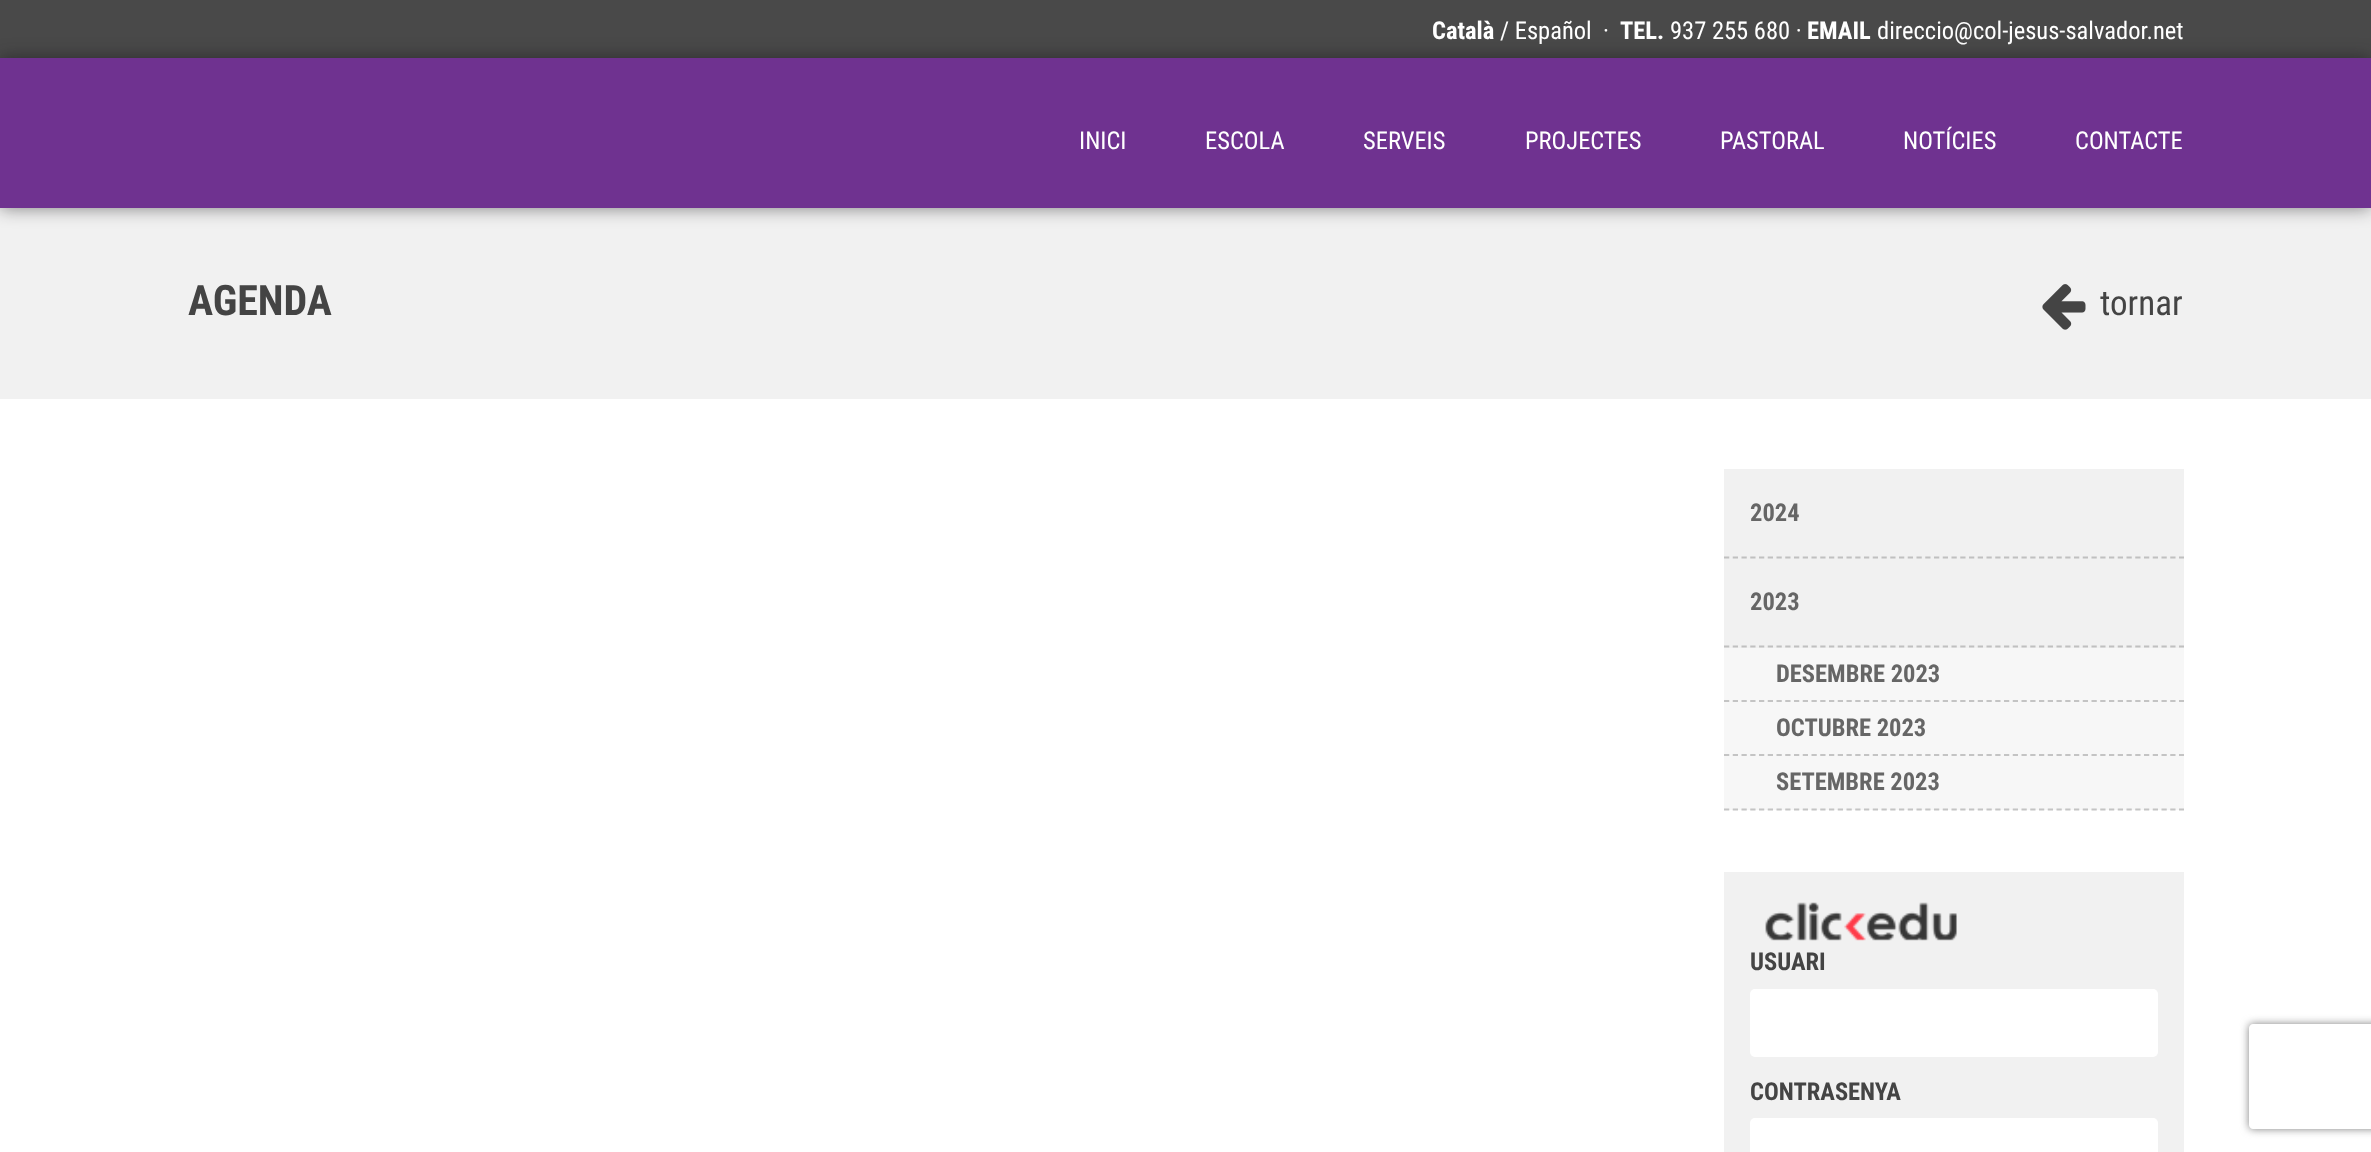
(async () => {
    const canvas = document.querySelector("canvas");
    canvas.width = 2371;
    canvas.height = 1152;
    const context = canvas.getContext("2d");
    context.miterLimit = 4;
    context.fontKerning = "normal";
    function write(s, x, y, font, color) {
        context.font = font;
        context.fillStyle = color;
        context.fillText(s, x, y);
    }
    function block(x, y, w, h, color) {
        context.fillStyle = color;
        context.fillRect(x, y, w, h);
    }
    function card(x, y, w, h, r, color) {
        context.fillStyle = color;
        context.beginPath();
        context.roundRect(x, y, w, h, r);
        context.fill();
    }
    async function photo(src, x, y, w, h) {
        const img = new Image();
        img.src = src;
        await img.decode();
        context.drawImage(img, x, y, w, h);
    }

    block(0, 0, 2371, 1152, "rgb(255, 255, 255)");
    block(0, 0, 2371, 58, "rgb(73, 73, 73)");
    write("Català", 1432, 39, "bold 24.5px Roboto Condensed", "rgb(255, 255, 255)");
    write("/ Español", 1500, 39, "24.5px Roboto Condensed", "rgb(255, 255, 255)");
    write("·", 1603, 39, "24.5px Roboto Condensed", "rgb(255, 255, 255)");
    write("TEL.", 1620, 39, "bold 24.5px Roboto Condensed", "rgb(255, 255, 255)");
    write("937 255 680 ·", 1670, 39, "24.5px Roboto Condensed", "rgb(255, 255, 255)");
    write("EMAIL", 1807, 39, "bold 24.5px Roboto Condensed", "rgb(255, 255, 255)");
    write("direccio@col-jesus-salvador.net", 1877, 39, "24.5px Roboto Condensed", "rgb(255, 255, 255)");
    block(0, 208, 2371, 191, "rgb(241, 241, 241)");
    context.fillStyle = "rgba(19, 18, 21, 0.52)";
    context.filter = "blur(9px)";
    context.beginPath();
    context.rect(0, 58, 2371, 150);
    context.fill();
    context.filter = "none";
    block(0, 58, 2371, 150, "rgb(111, 50, 144)");
    write("INICI", 1079, 149, "24.5px Roboto Condensed", "rgb(255, 255, 255)");
    write("ESCOLA", 1205, 149, "24.5px Roboto Condensed", "rgb(255, 255, 255)");
    write("SERVEIS", 1363, 149, "24.5px Roboto Condensed", "rgb(255, 255, 255)");
    write("PROJECTES", 1525, 149, "24.5px Roboto Condensed", "rgb(255, 255, 255)");
    write("PASTORAL", 1720, 149, "24.5px Roboto Condensed", "rgb(255, 255, 255)");
    write("NOTÍCIES", 1903, 149, "24.5px Roboto Condensed", "rgb(255, 255, 255)");
    write("CONTACTE", 2075, 149, "24.5px Roboto Condensed", "rgb(255, 255, 255)");
    write("AGENDA", 188, 315, "bold 42px Roboto Condensed", "rgb(68, 68, 68)");
    await photo("media/1.png", 2042, 284, 44, 46);
    write("tornar", 2100, 315, "35px Roboto Condensed", "rgb(68, 68, 68)");
    block(1724, 469, 460, 179, "rgb(241, 241, 241)");
    context.beginPath();
    context.moveTo(1724, 557.5);
    context.lineTo(2184, 557.5);
    context.strokeStyle = "rgb(192, 192, 192)";
    context.lineWidth = 1.8;
    context.setLineDash([5.25, 3.5]);
    context.stroke();
    write("2024", 1750, 521, "bold 24.5px Roboto Condensed", "rgb(102, 102, 102)");
    context.beginPath();
    context.moveTo(1724, 646.5);
    context.lineTo(2184, 646.5);
    context.stroke();
    write("2023", 1750, 610, "bold 24.5px Roboto Condensed", "rgb(102, 102, 102)");
    block(1724, 648, 460, 162, "rgb(247, 247, 247)");
    context.beginPath();
    context.moveTo(1724, 701);
    context.lineTo(2184, 701);
    context.strokeStyle = "rgb(196, 196, 196)";
    context.stroke();
    write("DESEMBRE 2023", 1776, 682, "bold 24.5px Roboto Condensed", "rgb(102, 102, 102)");
    context.beginPath();
    context.moveTo(1724, 755);
    context.lineTo(2184, 755);
    context.stroke();
    write("OCTUBRE 2023", 1776, 736, "bold 24.5px Roboto Condensed", "rgb(102, 102, 102)");
    context.beginPath();
    context.moveTo(1724, 809.5);
    context.lineTo(2184, 809.5);
    context.stroke();
    write("SETEMBRE 2023", 1776, 790, "bold 24.5px Roboto Condensed", "rgb(102, 102, 102)");
    block(1724, 872, 460, 280, "rgb(241, 241, 241)");
    await photo("media/2.png", 1765, 902, 192, 39);
    write("USUARI", 1750, 970, "bold 24.5px Roboto Condensed", "rgb(68, 68, 68)");
    card(1750, 989, 408, 68, 5, "rgb(255, 255, 255)");
    write("CONTRASENYA", 1750, 1100, "bold 24.5px Roboto Condensed", "rgb(68, 68, 68)");
    card(1750, 1118, 408, 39, 5, "rgb(255, 255, 255)");
    context.save();
    context.beginPath();
    context.moveTo(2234, 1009);
    context.lineTo(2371, 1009);
    context.lineTo(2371, 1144);
    context.lineTo(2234, 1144);
    context.closePath();
    context.moveTo(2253, 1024);
    context.lineTo(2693, 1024);
    context.bezierCurveTo(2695, 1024, 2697, 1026, 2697, 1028);
    context.lineTo(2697, 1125);
    context.bezierCurveTo(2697, 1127, 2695, 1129, 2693, 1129);
    context.lineTo(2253, 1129);
    context.bezierCurveTo(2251, 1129, 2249, 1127, 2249, 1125);
    context.lineTo(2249, 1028);
    context.bezierCurveTo(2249, 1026, 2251, 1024, 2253, 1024);
    context.closePath();
    context.clip("evenodd");
    context.fillStyle = "rgb(128, 128, 128)";
    context.filter = "blur(4.5px)";
    context.beginPath();
    context.roundRect(2249, 1024, 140, 105, 4);
    context.fill();
    context.filter = "none";
    context.restore();
})();
